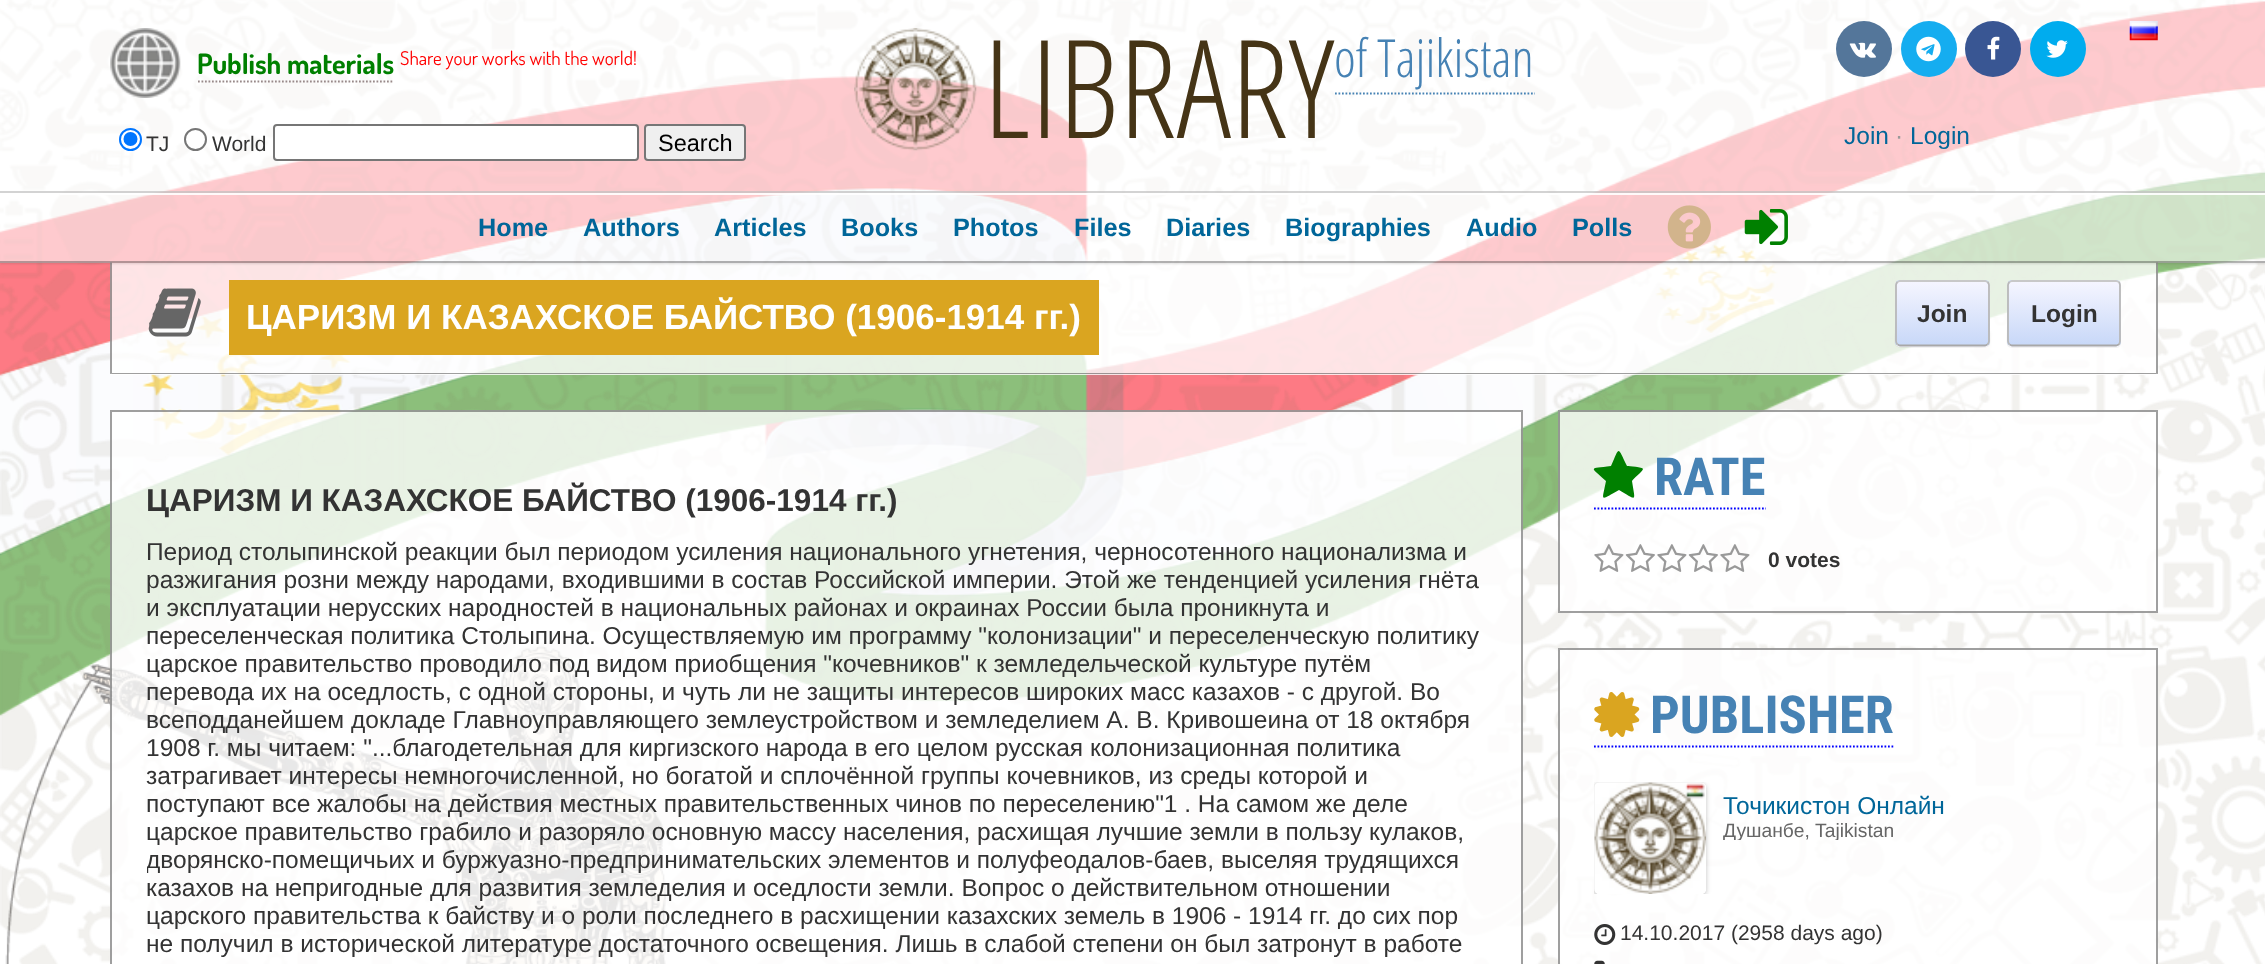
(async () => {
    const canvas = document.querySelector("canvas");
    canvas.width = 2265;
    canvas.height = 964;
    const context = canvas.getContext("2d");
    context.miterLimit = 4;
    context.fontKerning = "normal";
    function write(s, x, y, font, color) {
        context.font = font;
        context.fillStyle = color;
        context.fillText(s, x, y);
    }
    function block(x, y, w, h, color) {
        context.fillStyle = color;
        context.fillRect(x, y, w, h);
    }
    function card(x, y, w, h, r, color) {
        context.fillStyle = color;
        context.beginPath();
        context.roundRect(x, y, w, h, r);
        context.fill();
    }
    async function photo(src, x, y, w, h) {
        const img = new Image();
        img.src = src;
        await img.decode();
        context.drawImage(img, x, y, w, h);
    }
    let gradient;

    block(0, 0, 2265, 964, "rgb(255, 255, 255)");
    await photo("media/1.png", 0, 1, 2265, 963);
    await photo("media/2.png", 0, 0, 2265, 964);
    block(110, 263, 2048, 112, "rgba(255, 255, 255, 0.8)");
    context.fillStyle = "rgba(64, 64, 64, 0.5)";
    context.beginPath();
    context.moveTo(2158, 262);
    context.lineTo(2158, 374);
    context.lineTo(2156, 373);
    context.lineTo(2156, 262);
    context.closePath();
    context.fill();
    context.beginPath();
    context.moveTo(2158, 374);
    context.lineTo(110, 374);
    context.lineTo(112, 373);
    context.lineTo(2156, 373);
    context.closePath();
    context.fill();
    context.beginPath();
    context.moveTo(110, 374);
    context.lineTo(110, 262);
    context.lineTo(112, 262);
    context.lineTo(112, 373);
    context.closePath();
    context.fill();
    context.save();
    context.beginPath();
    context.moveTo(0, 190);
    context.lineTo(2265, 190);
    context.lineTo(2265, 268);
    context.lineTo(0, 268);
    context.closePath();
    context.moveTo(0, 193);
    context.lineTo(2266, 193);
    context.lineTo(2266, 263);
    context.lineTo(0, 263);
    context.closePath();
    context.clip("evenodd");
    context.fillStyle = "rgba(51, 51, 51, 0.15)";
    context.filter = "blur(1px)";
    context.beginPath();
    context.rect(0, 194, 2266, 70);
    context.fill();
    context.filter = "none";
    context.restore();
    block(0, 0, 2265, 193, "rgba(255, 255, 255, 0.6)");
    block(0, 191, 2265, 2, "rgba(192, 192, 192, 0.7)");
    context.fillStyle = "rgb(255, 255, 255)";
    context.beginPath();
    context.arc(130.5, 139.5, 10.5, 0, Math.PI * 2);
    context.fill();
    context.strokeStyle = "rgb(0, 117, 255)";
    context.lineWidth = 2;
    context.stroke();
    context.fillStyle = "rgb(0, 117, 255)";
    context.beginPath();
    context.arc(130.5, 139, 7, 0, Math.PI * 2);
    context.fill();
    write("TJ", 146, 151, "21px Liberation Sans", "rgb(51, 51, 51)");
    context.fillStyle = "rgb(255, 255, 255)";
    context.beginPath();
    context.arc(195.5, 139.5, 10.5, 0, Math.PI * 2);
    context.fill();
    context.strokeStyle = "rgb(118, 118, 118)";
    context.stroke();
    write("World", 212, 151, "21px Liberation Sans", "rgb(51, 51, 51)");
    context.fillStyle = "rgb(255, 255, 255)";
    context.beginPath();
    context.roundRect(274, 125, 364, 35, 3);
    context.fill();
    context.stroke();
    context.fillStyle = "rgb(239, 239, 239)";
    context.beginPath();
    context.roundRect(645, 125, 100, 35, 3);
    context.fill();
    context.stroke();
    write("Search", 658, 151, "23.5px Liberation Sans", "rgb(0, 0, 0)");
    await photo("media/3.png", 854, 28, 123, 123);
    write("LIBRARY", 983, 138, "300 136.5px Open Sans Condensed", "rgb(69, 52, 22)");
    write("of Tajikistan", 1334, 77, "300 52.5px Open Sans Condensed", "rgb(70, 130, 180)");
    context.beginPath();
    context.moveTo(1335, 93.5);
    context.lineTo(1535, 93.5);
    context.strokeStyle = "rgb(70, 130, 180)";
    context.lineWidth = 1.8;
    context.setLineDash([1.75, 1.75]);
    context.stroke();
    context.fillStyle = "rgb(84, 118, 154)";
    context.beginPath();
    context.arc(1864, 49, 28, 0, Math.PI * 2);
    context.fill();
    await photo("media/4.png", 1849, 42, 27, 16);
    context.fillStyle = "rgb(21, 173, 240)";
    context.beginPath();
    context.arc(1929, 49, 28, 0, Math.PI * 2);
    context.fill();
    await photo("media/5.png", 1916, 36, 25, 26);
    context.fillStyle = "rgb(57, 86, 147)";
    context.beginPath();
    context.arc(1993, 49, 28, 0, Math.PI * 2);
    context.fill();
    await photo("media/6.png", 1987, 36, 13, 24);
    context.fillStyle = "rgb(0, 172, 238)";
    context.beginPath();
    context.arc(2058, 49, 28, 0, Math.PI * 2);
    context.fill();
    await photo("media/7.png", 2046, 40, 22, 18);
    await photo("media/8.png", 2129, 21, 29, 20);
    write("Join", 1844, 144, "24.5px Liberation Sans", "rgb(0, 102, 153)");
    write("·", 1895, 144, "24.5px Liberation Sans", "rgb(153, 153, 153)");
    write("Login", 1910, 144, "24.5px Liberation Sans", "rgb(0, 102, 153)");
    await photo("media/9.png", 110, 28, 71, 70);
    write("Publish materials", 197, 74, "bold 28px Dosis", "rgb(0, 128, 0)");
    context.beginPath();
    context.moveTo(198, 81.5);
    context.lineTo(394, 81.5);
    context.strokeStyle = "rgb(152, 137, 137)";
    context.stroke();
    write("Share your works with the world!", 400, 65, "19px Dosis", "rgb(255, 0, 0)");
    block(0, 193, 2265, 70, "rgba(255, 255, 255, 0.6)");
    block(60, 193, 2205, 2, "rgba(255, 255, 255, 0.9)");
    block(0, 261, 2265, 2, "rgba(64, 64, 64, 0.4)");
    write("Home", 478, 236, "bold 25.25px Liberation Sans", "rgb(0, 102, 153)");
    write("Authors", 583, 236, "bold 25.25px Liberation Sans", "rgb(0, 102, 153)");
    write("Articles", 714, 236, "bold 25.25px Liberation Sans", "rgb(0, 102, 153)");
    write("Books", 841, 236, "bold 25.25px Liberation Sans", "rgb(0, 102, 153)");
    write("Photos", 953, 236, "bold 25.25px Liberation Sans", "rgb(0, 102, 153)");
    write("Files", 1074, 236, "bold 25.25px Liberation Sans", "rgb(0, 102, 153)");
    write("Diaries", 1166, 236, "bold 25.25px Liberation Sans", "rgb(0, 102, 153)");
    write("Biographies", 1285, 236, "bold 25.25px Liberation Sans", "rgb(0, 102, 153)");
    write("Audio", 1466, 236, "bold 25.25px Liberation Sans", "rgb(0, 102, 153)");
    write("Polls", 1572, 236, "bold 25.25px Liberation Sans", "rgb(0, 102, 153)");
    await photo("media/10.png", 1667, 205, 44, 44);
    await photo("media/11.png", 1744, 209, 44, 36);
    await photo("media/12.png", 148, 288, 53, 49);
    block(229, 280, 870, 75, "rgb(218, 165, 32)");
    write("ЦАРИЗМ И КАЗАХСКОЕ БАЙСТВО (1906-1914 гг.)", 246, 329, "bold 35px Liberation Sans", "rgb(255, 255, 255)");
    context.fillStyle = "rgba(128, 128, 128, 0.1)";
    context.beginPath();
    context.moveTo(1895, 285);
    context.lineTo(1895, 324);
    context.bezierCurveTo(1895, 349, 1890, 348, 1914, 348);
    context.lineTo(1971, 348);
    context.bezierCurveTo(1995, 348, 1990, 349, 1990, 324);
    context.lineTo(1990, 285);
    context.lineTo(1990, 341);
    context.bezierCurveTo(1990, 344, 1987, 346, 1984, 346);
    context.lineTo(1900, 346);
    context.bezierCurveTo(1898, 346, 1895, 344, 1895, 341);
    context.closePath();
    context.fill();
    context.save();
    context.beginPath();
    context.roundRect(1895, 280, 95, 67, 5);
    context.clip();
    gradient = context.createLinearGradient(1943, 219, 1943, 282);
    gradient.addColorStop(0, "rgb(245, 245, 255)");
    gradient.addColorStop(1, "rgb(200, 216, 248)");
    context.fillStyle = gradient;
    context.fillRect(1895, 280, 95, 2);
    gradient = context.createLinearGradient(1943, 282, 1943, 345);
    gradient.addColorStop(0, "rgb(245, 245, 255)");
    gradient.addColorStop(1, "rgb(200, 216, 248)");
    context.fillStyle = gradient;
    context.fillRect(1895, 282, 95, 63);
    gradient = context.createLinearGradient(1943, 345, 1943, 408);
    gradient.addColorStop(0, "rgb(245, 245, 255)");
    gradient.addColorStop(1, "rgb(200, 216, 248)");
    context.fillStyle = gradient;
    context.fillRect(1895, 345, 95, 2);
    context.restore();
    context.beginPath();
    context.moveTo(1897.5, 282);
    context.lineTo(1900, 281);
    context.lineTo(1985, 281);
    context.lineTo(1987.5, 282);
    context.strokeStyle = "rgb(200, 200, 200)";
    context.setLineDash([]);
    context.stroke();
    context.beginPath();
    context.moveTo(1987.5, 282);
    context.bezierCurveTo(1988.5, 283, 1989, 284, 1989, 285);
    context.lineTo(1989, 341);
    context.bezierCurveTo(1989, 342.5, 1988.5, 343.5, 1987.5, 344.5);
    context.strokeStyle = "rgb(184, 184, 184)";
    context.stroke();
    context.beginPath();
    context.moveTo(1987.5, 344.5);
    context.lineTo(1985, 345.5);
    context.lineTo(1900, 345.5);
    context.lineTo(1897.5, 344.5);
    context.strokeStyle = "rgb(168, 168, 168)";
    context.stroke();
    context.beginPath();
    context.moveTo(1897.5, 344.5);
    context.bezierCurveTo(1896.5, 343.5, 1896, 342.5, 1896, 341);
    context.lineTo(1896, 285);
    context.bezierCurveTo(1896, 284, 1896.5, 283, 1897.5, 282);
    context.strokeStyle = "rgb(184, 184, 184)";
    context.stroke();
    write("Join", 1917, 322, "bold 24.5px Liberation Sans", "rgb(51, 51, 51)");
    context.fillStyle = "rgba(128, 128, 128, 0.1)";
    context.beginPath();
    context.moveTo(2007, 285);
    context.lineTo(2007, 324);
    context.bezierCurveTo(2007, 351, 2002, 348, 2029, 348);
    context.lineTo(2116, 348);
    context.bezierCurveTo(2120, 348, 2121, 345, 2121, 341);
    context.bezierCurveTo(2121, 344, 2119, 346, 2116, 346);
    context.lineTo(2012, 346);
    context.bezierCurveTo(2010, 346, 2007, 344, 2007, 341);
    context.closePath();
    context.fill();
    context.save();
    context.beginPath();
    context.roundRect(2007, 280, 114, 67, 5);
    context.clip();
    gradient = context.createLinearGradient(2064, 219, 2064, 282);
    gradient.addColorStop(0, "rgb(245, 245, 255)");
    gradient.addColorStop(1, "rgb(200, 216, 248)");
    context.fillStyle = gradient;
    context.fillRect(2007, 280, 114, 2);
    gradient = context.createLinearGradient(2064, 282, 2064, 345);
    gradient.addColorStop(0, "rgb(245, 245, 255)");
    gradient.addColorStop(1, "rgb(200, 216, 248)");
    context.fillStyle = gradient;
    context.fillRect(2007, 282, 114, 63);
    gradient = context.createLinearGradient(2064, 345, 2064, 408);
    gradient.addColorStop(0, "rgb(245, 245, 255)");
    gradient.addColorStop(1, "rgb(200, 216, 248)");
    context.fillStyle = gradient;
    context.fillRect(2007, 345, 114, 2);
    context.restore();
    context.beginPath();
    context.moveTo(2009.5, 282);
    context.lineTo(2012, 281);
    context.lineTo(2116, 281);
    context.lineTo(2119, 282);
    context.strokeStyle = "rgb(200, 200, 200)";
    context.stroke();
    context.beginPath();
    context.moveTo(2119, 282);
    context.bezierCurveTo(2119.5, 283, 2120, 284, 2120, 285);
    context.lineTo(2120, 341);
    context.bezierCurveTo(2120, 342.5, 2119.5, 343.5, 2119, 344.5);
    context.strokeStyle = "rgb(184, 184, 184)";
    context.stroke();
    context.beginPath();
    context.moveTo(2119, 344.5);
    context.lineTo(2116, 345.5);
    context.lineTo(2012, 345.5);
    context.lineTo(2009.5, 344.5);
    context.strokeStyle = "rgb(168, 168, 168)";
    context.stroke();
    context.beginPath();
    context.moveTo(2009.5, 344.5);
    context.bezierCurveTo(2008.5, 343.5, 2008, 342.5, 2008, 341);
    context.lineTo(2008, 285);
    context.bezierCurveTo(2008, 284, 2008.5, 283, 2009.5, 282);
    context.strokeStyle = "rgb(184, 184, 184)";
    context.stroke();
    write("Login", 2031, 322, "bold 24.5px Liberation Sans", "rgb(51, 51, 51)");
    block(110, 410, 1413, 554, "rgba(255, 255, 255, 0.8)");
    context.strokeStyle = "rgba(64, 64, 64, 0.5)";
    context.lineWidth = 2;
    context.strokeRect(111, 411, 1411, 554);
    write("ЦАРИЗМ И КАЗАХСКОЕ БАЙСТВО (1906-1914 гг.)", 146, 511, "bold 31.5px Liberation Sans", "rgb(51, 51, 51)");
    write("Период столыпинской реакции был периодом усиления национального угнетения, черносотенного национализма и", 146, 560, "24.5px Liberation Sans", "rgb(51, 51, 51)");
    write("разжигания розни между народами, входившими в состав Российской империи. Этой же тенденцией усиления гнёта", 146, 588, "24.5px Liberation Sans", "rgb(51, 51, 51)");
    write("и эксплуатации нерусских народностей в национальных районах и окраинах России была проникнута и", 146, 616, "24.5px Liberation Sans", "rgb(51, 51, 51)");
    write("переселенческая политика Столыпина. Осуществляемую им программу \"колонизации\" и переселенческую политику", 146, 644, "24.5px Liberation Sans", "rgb(51, 51, 51)");
    write("царское правительство проводило под видом приобщения \"кочевников\" к земледельческой культуре путём", 146, 672, "24.5px Liberation Sans", "rgb(51, 51, 51)");
    write("перевода их на оседлость, с одной стороны, и чуть ли не защиты интересов широких масс казахов - с другой. Во", 146, 700, "24.5px Liberation Sans", "rgb(51, 51, 51)");
    write("всеподданейшем докладе Главноуправляющего землеустройством и земледелием А. В. Кривошеина от 18 октября", 146, 728, "24.5px Liberation Sans", "rgb(51, 51, 51)");
    write("1908 г. мы читаем: \"...благодетельная для киргизского народа в его целом русская колонизационная политика", 146, 756, "24.5px Liberation Sans", "rgb(51, 51, 51)");
    write("затрагивает интересы немногочисленной, но богатой и сплочённой группы кочевников, из среды которой и", 146, 784, "24.5px Liberation Sans", "rgb(51, 51, 51)");
    write("поступают все жалобы на действия местных правительственных чинов по переселению\"1 . На самом же деле", 146, 812, "24.5px Liberation Sans", "rgb(51, 51, 51)");
    write("царское правительство грабило и разоряло основную массу населения, расхищая лучшие земли в пользу кулаков,", 146, 840, "24.5px Liberation Sans", "rgb(51, 51, 51)");
    context.save();
    context.beginPath();
    context.rect(147, 537, 1339, 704);
    context.clip();
    write("дворянско-помещичьих и буржуазно-предпринимательских элементов и полуфеодалов-баев, выселяя трудящихся", 146, 868, "24.5px Liberation Sans", "rgb(51, 51, 51)");
    context.restore();
    write("казахов на непригодные для развития земледелия и оседлости земли. Вопрос о действительном отношении", 146, 896, "24.5px Liberation Sans", "rgb(51, 51, 51)");
    write("царского правительства к байству и о роли последнего в расхищении казахских земель в 1906 - 1914 гг. до сих пор", 146, 924, "24.5px Liberation Sans", "rgb(51, 51, 51)");
    write("не получил в исторической литературе достаточного освещения. Лишь в слабой степени он был затронут в работе", 146, 952, "24.5px Liberation Sans", "rgb(51, 51, 51)");
    block(1558, 410, 600, 203, "rgba(255, 255, 255, 0.8)");
    context.strokeRect(1559, 411, 598, 201);
    context.beginPath();
    context.moveTo(1594, 508.5);
    context.lineTo(1766, 508.5);
    context.strokeStyle = "rgb(0, 0, 255)";
    context.lineWidth = 1.8;
    context.setLineDash([1.75, 1.75]);
    context.stroke();
    context.fillStyle = "rgb(0, 128, 0)";
    context.beginPath();
    context.moveTo(1643, 469);
    context.bezierCurveTo(1643, 471, 1633, 479, 1632, 481);
    context.bezierCurveTo(1635, 502, 1638, 501, 1619, 490);
    context.bezierCurveTo(1599, 501, 1602, 502, 1606, 481);
    context.bezierCurveTo(1590, 466, 1588, 469, 1611, 466);
    context.bezierCurveTo(1620, 446, 1617, 446, 1627, 466);
    context.bezierCurveTo(1629, 466, 1643, 467, 1643, 469);
    context.closePath();
    context.fill();
    write("RATE", 1654, 495, "bold 52.5px Roboto Condensed", "rgb(70, 130, 180)");
    await photo("media/13.png", 1594, 544, 30, 28);
    await photo("media/14.png", 1625, 544, 30, 28);
    await photo("media/15.png", 1657, 544, 30, 28);
    await photo("media/16.png", 1688, 544, 30, 28);
    await photo("media/17.png", 1720, 544, 30, 28);
    write("0 votes", 1768, 567, "bold 21px Liberation Sans", "rgb(51, 51, 51)");
    block(1558, 648, 600, 316, "rgba(255, 255, 255, 0.8)");
    context.strokeStyle = "rgba(64, 64, 64, 0.5)";
    context.lineWidth = 2;
    context.setLineDash([]);
    context.strokeRect(1559, 649, 598, 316);
    context.beginPath();
    context.moveTo(1594, 746.5);
    context.lineTo(1895, 746.5);
    context.strokeStyle = "rgb(0, 0, 255)";
    context.lineWidth = 1.8;
    context.setLineDash([1.75, 1.75]);
    context.stroke();
    await photo("media/18.png", 1594, 692, 46, 45);
    write("PUBLISHER", 1650, 733, "bold 52.5px Roboto Condensed", "rgb(70, 130, 180)");
    context.save();
    context.beginPath();
    context.rect(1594, 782, 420, 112);
    context.clip();
    context.fillStyle = "rgba(51, 51, 51, 0.3)";
    context.filter = "blur(2.5px)";
    context.beginPath();
    context.roundRect(1594, 784, 112, 112, 5);
    context.fill();
    context.filter = "none";
    context.restore();
    card(1594, 782, 112, 112, 5, "rgb(237, 237, 237)");
    await photo("media/19.png", 1594, 782, 113, 112);
    write("Точикистон Онлайн", 1723, 814, "24.5px Liberation Sans", "rgb(0, 102, 153)");
    context.save();
    context.beginPath();
    context.rect(1706, 782, 308, 58);
    context.clip();
    write("Душанбе, Tajikistan", 1723, 837, "19.25px Liberation Sans", "rgb(102, 102, 102)");
    context.restore();
    await photo("media/20.png", 1594, 924, 22, 21);
    write("14.10.2017 (2958 days ago)", 1620, 940, "21px Liberation Sans", "rgb(51, 51, 51)");
    await photo("media/21.png", 1594, 960, 11, 4);
})();
